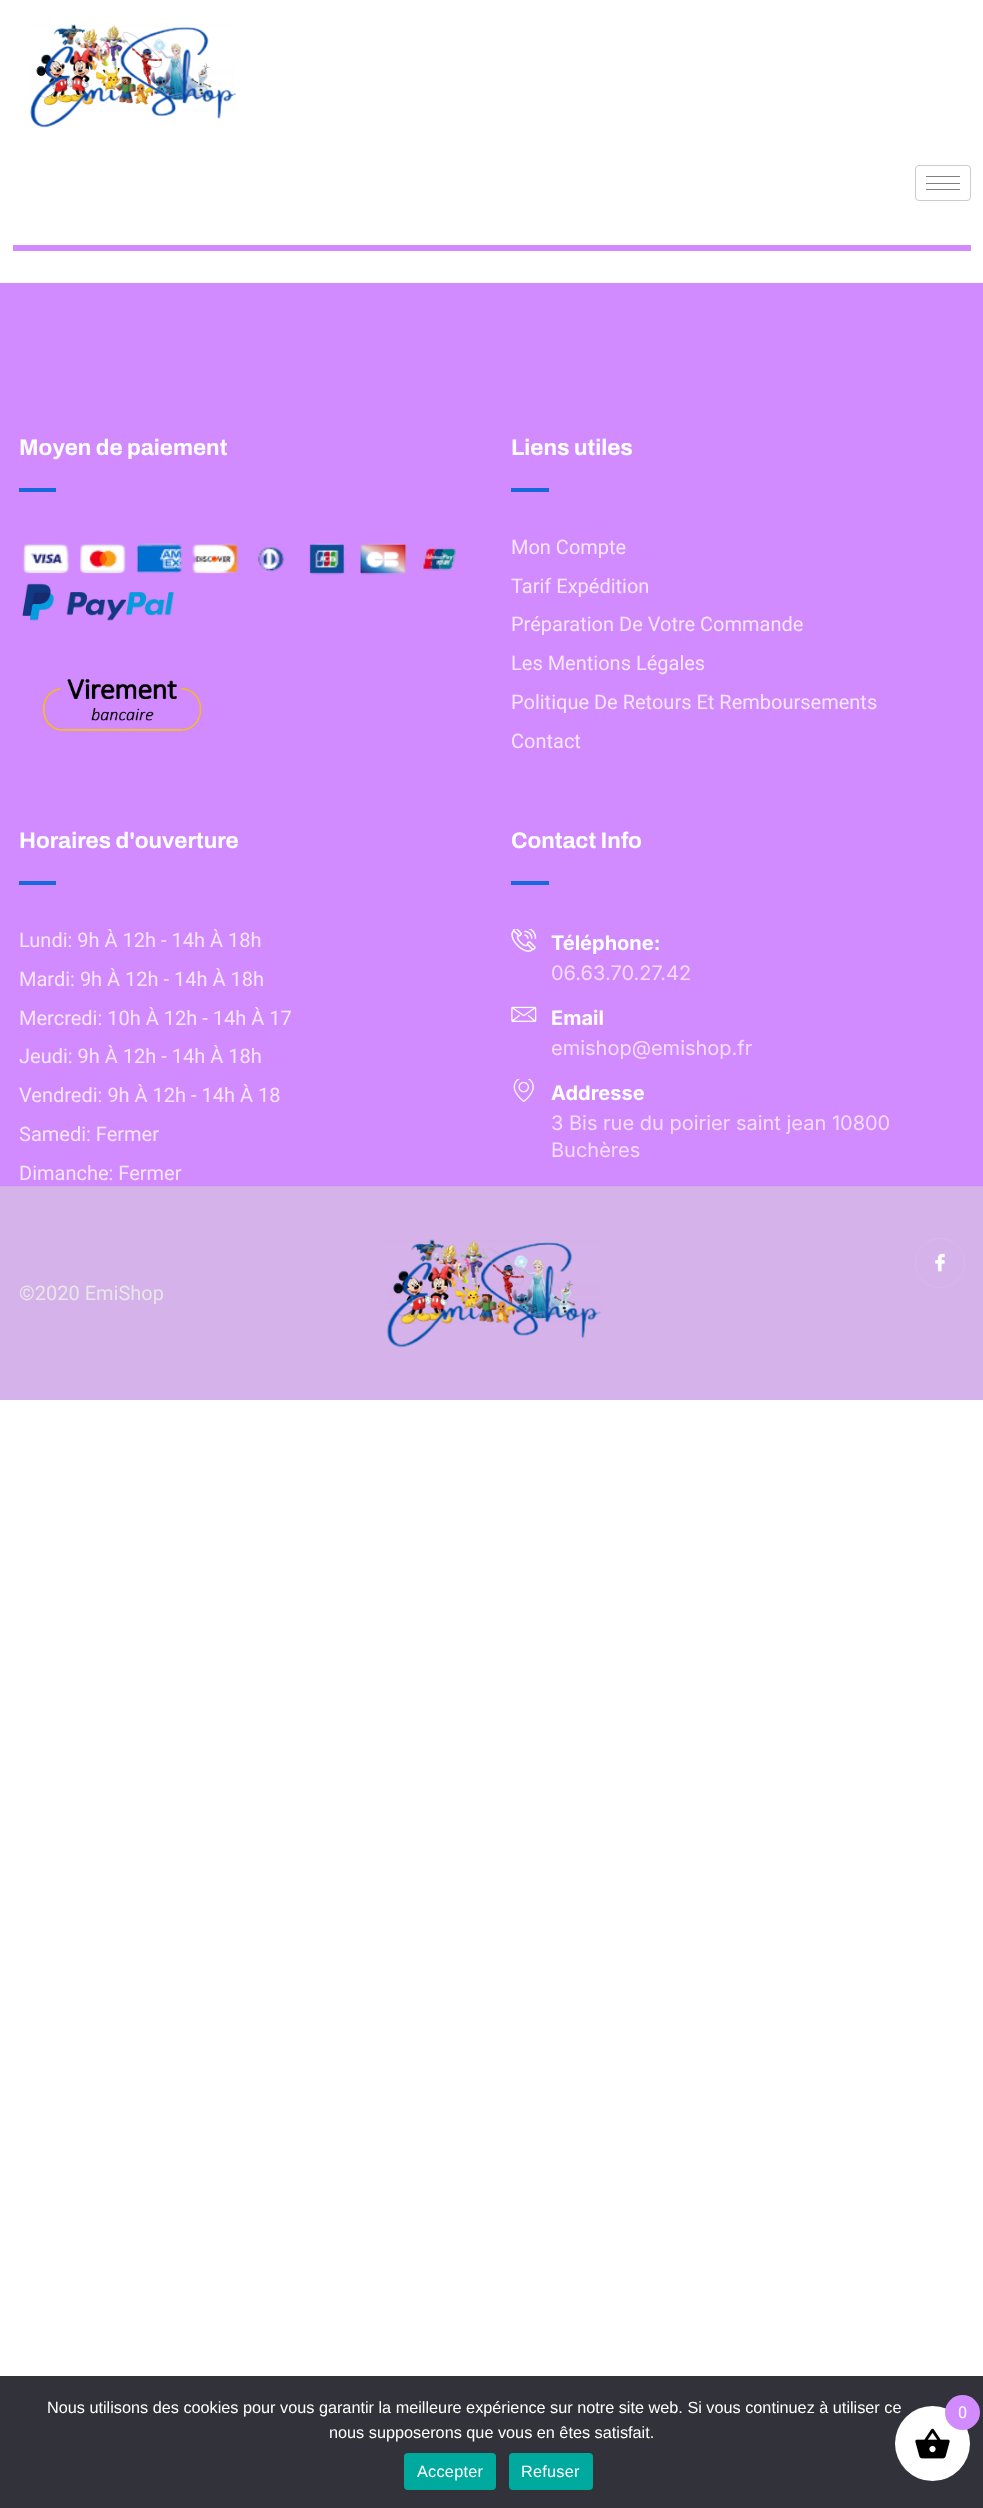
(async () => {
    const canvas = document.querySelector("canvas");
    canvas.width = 983;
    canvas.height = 2508;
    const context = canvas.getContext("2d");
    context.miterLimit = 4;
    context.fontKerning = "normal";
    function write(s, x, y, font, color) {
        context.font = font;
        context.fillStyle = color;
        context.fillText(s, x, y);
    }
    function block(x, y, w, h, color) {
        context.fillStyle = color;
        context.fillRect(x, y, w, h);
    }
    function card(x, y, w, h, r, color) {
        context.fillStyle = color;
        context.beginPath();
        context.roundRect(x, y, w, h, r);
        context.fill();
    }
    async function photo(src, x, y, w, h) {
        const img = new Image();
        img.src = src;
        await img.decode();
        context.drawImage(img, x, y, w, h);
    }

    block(0, 0, 983, 2508, "rgb(255, 255, 255)");
    await photo("media/1.png", 30, 24, 206, 104);
    context.beginPath();
    context.roundRect(915.5, 165.5, 55, 35, 3.5);
    context.strokeStyle = "rgb(204, 204, 204)";
    context.stroke();
    block(926, 176, 34, 1, "rgb(128, 128, 128)");
    block(926, 183, 34, 1, "rgb(128, 128, 128)");
    block(926, 189, 34, 1, "rgb(128, 128, 128)");
    block(13, 245, 958, 6, "rgb(210, 138, 255)");
    block(0, 283, 983, 903, "rgb(210, 138, 255)");
    write("Moyen de paiement", 19, 455, "bold 22.5px Archivo", "rgb(255, 255, 255)");
    block(19, 488, 37, 4, "rgb(24, 104, 221)");
    await photo("media/2.png", 22, 543, 435, 32);
    await photo("media/3.png", 22, 583, 152, 38);
    await photo("media/4.png", 42, 678, 160, 53);
    write("Liens utiles", 511, 455, "bold 22.5px Archivo", "rgb(255, 255, 255)");
    block(511, 488, 38, 4, "rgb(24, 104, 221)");
    write("Mon Compte", 511, 554, "20px Roboto", "rgb(245, 229, 255)");
    write("Tarif Expédition", 511, 593, "20px Roboto", "rgb(245, 229, 255)");
    write("Préparation De Votre Commande", 511, 631, "20px Roboto", "rgb(245, 229, 255)");
    write("Les Mentions Légales", 511, 670, "20px Roboto", "rgb(245, 229, 255)");
    write("Politique De Retours Et Remboursements", 511, 709, "20px Roboto", "rgb(245, 229, 255)");
    write("Contact", 511, 748, "20px Roboto", "rgb(245, 229, 255)");
    write("Horaires d'ouverture", 19, 848, "bold 22.5px Archivo", "rgb(255, 255, 255)");
    block(19, 881, 37, 4, "rgb(24, 104, 221)");
    write("Lundi: 9h À 12h - 14h À 18h", 19, 947, "20px Roboto", "rgb(245, 229, 255)");
    write("Mardi: 9h À 12h - 14h À 18h", 19, 986, "20px Roboto", "rgb(245, 229, 255)");
    write("Mercredi: 10h À 12h - 14h À 17", 19, 1025, "20px Roboto", "rgb(245, 229, 255)");
    write("Jeudi: 9h À 12h - 14h À 18h", 19, 1063, "20px Roboto", "rgb(245, 229, 255)");
    write("Vendredi: 9h À 12h - 14h À 18", 19, 1102, "20px Roboto", "rgb(245, 229, 255)");
    write("Samedi: Fermer", 19, 1141, "20px Roboto", "rgb(245, 229, 255)");
    write("Dimanche: Fermer", 19, 1180, "20px Roboto", "rgb(245, 229, 255)");
    write("Contact Info", 511, 848, "bold 22.5px Archivo", "rgb(255, 255, 255)");
    block(511, 881, 38, 4, "rgb(24, 104, 221)");
    await photo("media/5.png", 511, 929, 26, 23);
    write("Téléphone:", 551, 950, "bold 20px Inter", "rgb(255, 255, 255)");
    write("06.63.70.27.42", 551, 980, "20px Inter", "rgb(242, 220, 255)");
    await photo("media/6.png", 511, 1006, 26, 16);
    write("Email", 551, 1025, "bold 20px Inter", "rgb(255, 255, 255)");
    write("emishop@emishop.fr", 551, 1055, "20px Inter", "rgb(242, 220, 255)");
    await photo("media/7.png", 513, 1079, 21, 23);
    write("Addresse", 551, 1100, "bold 20px Inter", "rgb(255, 255, 255)");
    write("3 Bis rue du poirier saint jean 10800", 551, 1130, "20px Inter", "rgb(242, 220, 255)");
    write("Buchères", 551, 1157, "20px Inter", "rgb(242, 220, 255)");
    block(0, 1187, 983, 213, "rgb(213, 178, 233)");
    block(0, 1186, 983, 1, "rgb(208, 173, 232)");
    write("©2020 EmiShop", 19, 1300, "20px Roboto", "rgb(231, 231, 231)");
    await photo("media/8.png", 386, 1239, 215, 109);
    context.beginPath();
    context.arc(940, 1263, 24.5, 0, Math.PI * 2);
    context.strokeStyle = "rgb(217, 186, 235)";
    context.stroke();
    await photo("media/9.png", 935, 1253, 10, 19);
    block(0, 2376, 983, 132, "rgb(50, 50, 58)");
    write("Nous utilisons des cookies pour vous garantir la meilleure expérience sur notre site web. Si vous continuez à utiliser ce", 47, 2413, "16.25px Liberation Sans", "rgb(255, 255, 255)");
    write("nous supposerons que vous en êtes satisfait.", 329, 2438, "16.25px Liberation Sans", "rgb(255, 255, 255)");
    card(404, 2453, 92, 37, 4, "rgb(0, 169, 157)");
    context.letterSpacing = "0.25px";
    write("Accepter", 417, 2477, "16.25px Liberation Sans", "rgb(255, 255, 255)");
    card(509, 2453, 84, 37, 4, "rgb(0, 169, 157)");
    write("Refuser", 521, 2477, "16.25px Liberation Sans", "rgb(255, 255, 255)");
    context.beginPath();
    context.arc(932.5, 2443.5, 37.5, 0, Math.PI * 2);
    context.fill();
    await photo("media/10.png", 915, 2428, 35, 31);
    context.fillStyle = "rgb(210, 138, 255)";
    context.beginPath();
    context.arc(962.5, 2412.5, 17.5, 0, Math.PI * 2);
    context.fill();
    context.letterSpacing = "0px";
    write("0", 958, 2418, "16.25px Roboto", "rgb(255, 255, 255)");
})();
